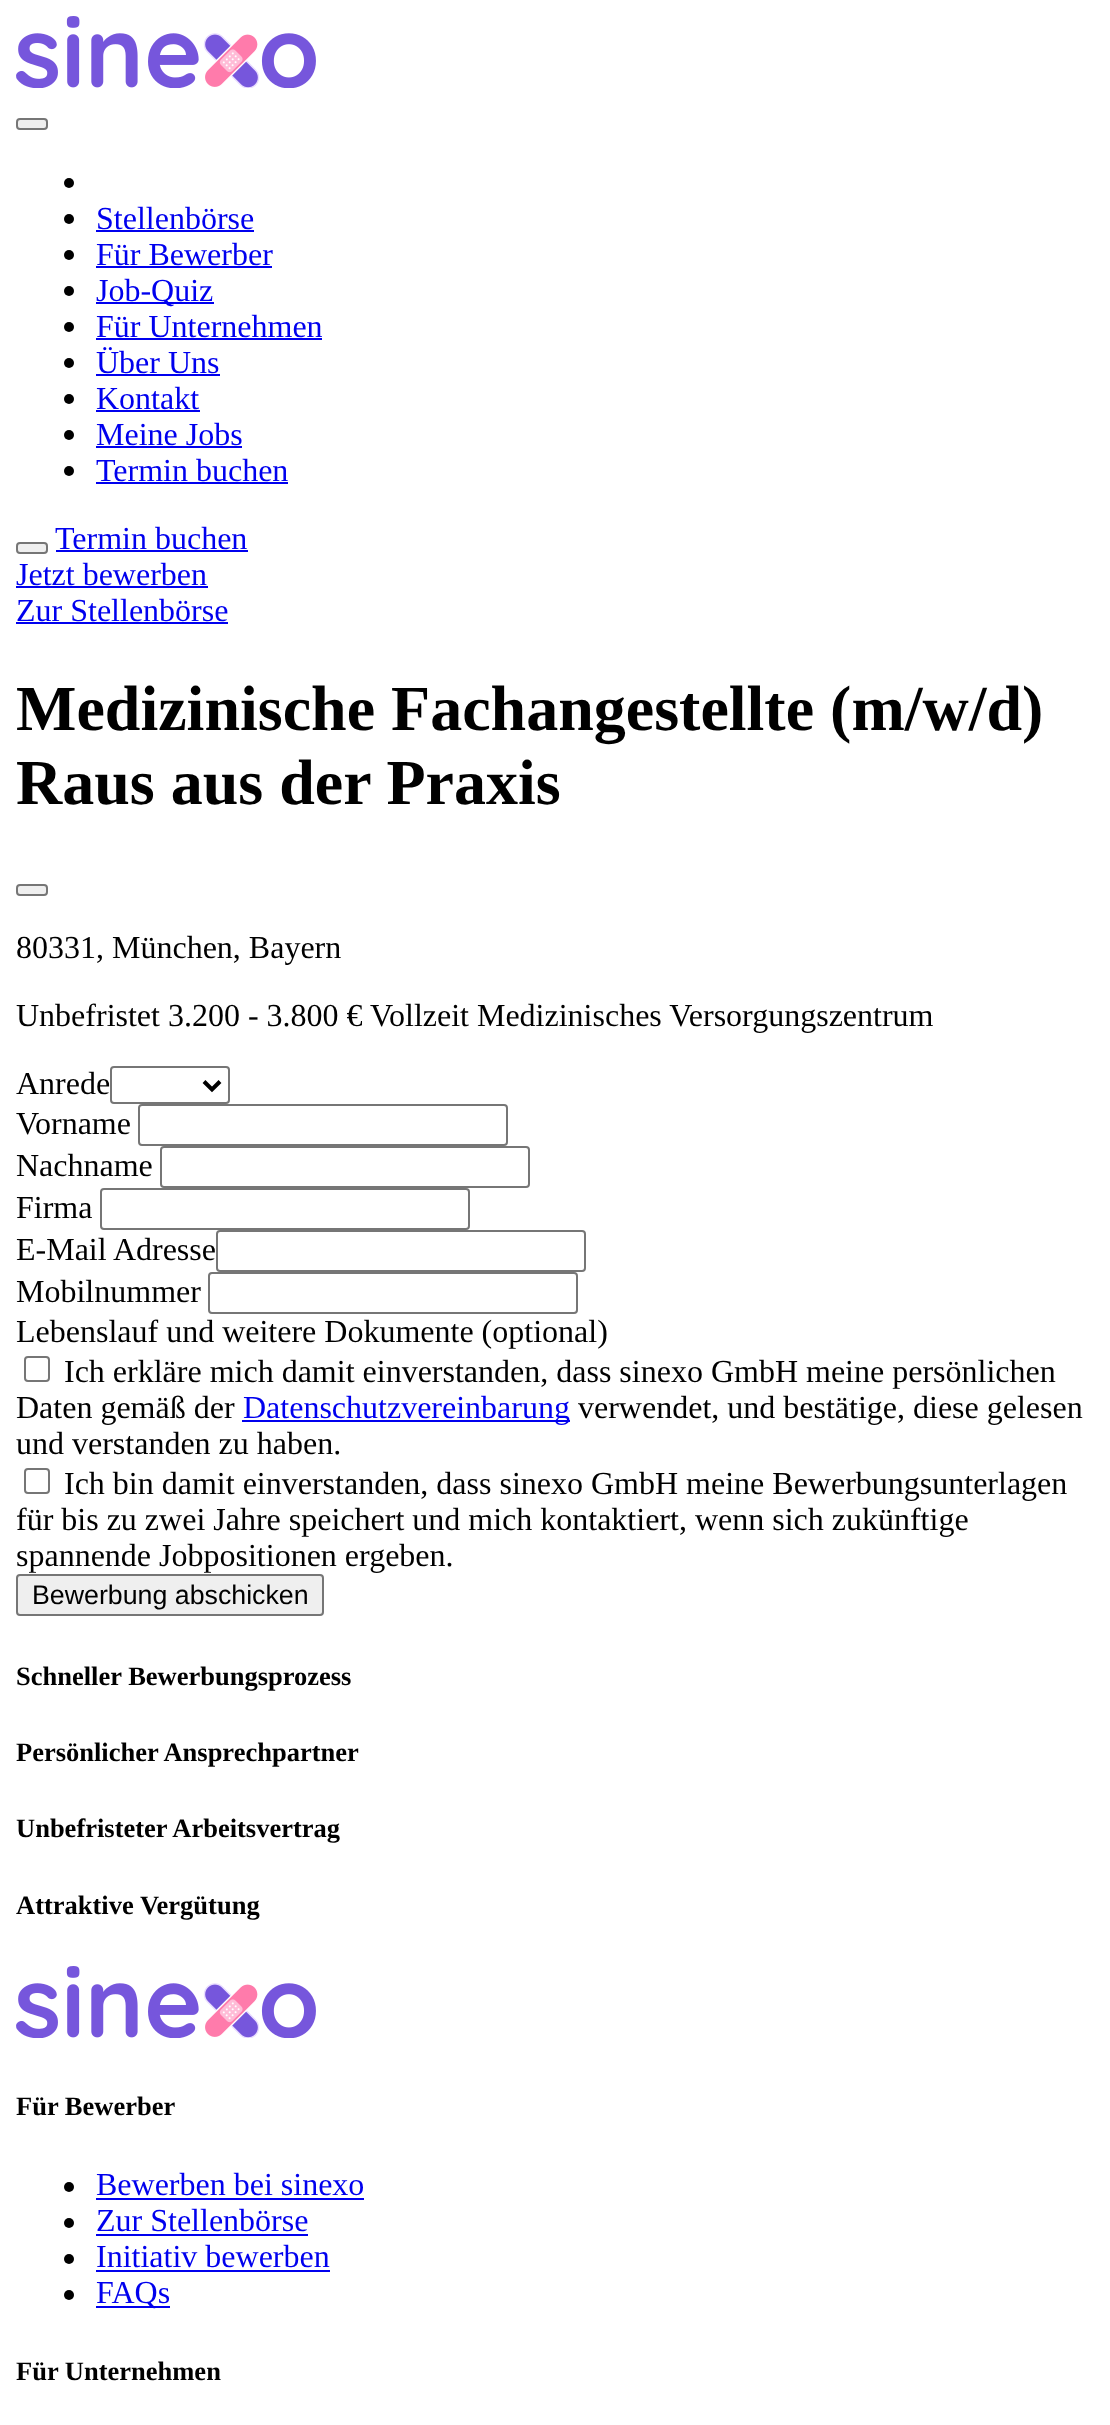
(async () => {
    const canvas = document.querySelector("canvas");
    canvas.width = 1110;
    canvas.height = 2425;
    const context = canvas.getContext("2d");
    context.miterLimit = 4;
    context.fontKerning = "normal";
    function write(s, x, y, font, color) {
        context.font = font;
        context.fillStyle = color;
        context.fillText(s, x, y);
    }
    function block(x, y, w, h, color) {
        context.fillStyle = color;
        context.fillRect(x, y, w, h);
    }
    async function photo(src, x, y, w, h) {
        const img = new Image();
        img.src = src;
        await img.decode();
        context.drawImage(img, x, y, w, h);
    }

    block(0, 0, 1110, 2425, "rgb(255, 255, 255)");
    await photo("media/1.png", 16, 16, 300, 72);
    context.fillStyle = "rgb(239, 239, 239)";
    context.beginPath();
    context.roundRect(17, 119, 30, 10, 3);
    context.fill();
    context.strokeStyle = "rgb(118, 118, 118)";
    context.lineWidth = 2;
    context.stroke();
    context.fillStyle = "rgb(0, 0, 0)";
    context.beginPath();
    context.arc(69, 183, 5, 0, Math.PI * 2);
    context.fill();
    context.beginPath();
    context.arc(69, 219, 5, 0, Math.PI * 2);
    context.fill();
    write("Stellenbörse", 96, 229, "32px Liberation Serif", "rgb(0, 0, 238)");
    block(96, 230, 158, 2, "rgb(0, 0, 238)");
    context.fillStyle = "rgb(0, 0, 0)";
    context.beginPath();
    context.arc(69, 255, 5, 0, Math.PI * 2);
    context.fill();
    write("Für Bewerber", 96, 265, "32px Liberation Serif", "rgb(0, 0, 238)");
    block(96, 266, 176, 2, "rgb(0, 0, 238)");
    context.fillStyle = "rgb(0, 0, 0)";
    context.beginPath();
    context.arc(69, 291, 5, 0, Math.PI * 2);
    context.fill();
    block(96, 302, 118, 2, "rgb(0, 0, 238)");
    write("Job-Quiz", 96, 301, "32px Liberation Serif", "rgb(0, 0, 238)");
    context.fillStyle = "rgb(0, 0, 0)";
    context.beginPath();
    context.arc(69, 327, 5, 0, Math.PI * 2);
    context.fill();
    write("Für Unternehmen", 96, 337, "32px Liberation Serif", "rgb(0, 0, 238)");
    block(96, 338, 226, 2, "rgb(0, 0, 238)");
    context.fillStyle = "rgb(0, 0, 0)";
    context.beginPath();
    context.arc(69, 363, 5, 0, Math.PI * 2);
    context.fill();
    write("Über Uns", 96, 373, "32px Liberation Serif", "rgb(0, 0, 238)");
    block(96, 374, 124, 2, "rgb(0, 0, 238)");
    context.fillStyle = "rgb(0, 0, 0)";
    context.beginPath();
    context.arc(69, 399, 5, 0, Math.PI * 2);
    context.fill();
    write("Kontakt", 96, 409, "32px Liberation Serif", "rgb(0, 0, 238)");
    block(96, 410, 104, 2, "rgb(0, 0, 238)");
    context.fillStyle = "rgb(0, 0, 0)";
    context.beginPath();
    context.arc(69, 435, 5, 0, Math.PI * 2);
    context.fill();
    write("Meine Jobs", 96, 445, "32px Liberation Serif", "rgb(0, 0, 238)");
    block(96, 446, 146, 2, "rgb(0, 0, 238)");
    context.fillStyle = "rgb(0, 0, 0)";
    context.beginPath();
    context.arc(69, 471, 5, 0, Math.PI * 2);
    context.fill();
    write("Termin buchen", 96, 481, "32px Liberation Serif", "rgb(0, 0, 238)");
    block(96, 482, 192, 2, "rgb(0, 0, 238)");
    context.fillStyle = "rgb(239, 239, 239)";
    context.beginPath();
    context.roundRect(17, 543, 30, 10, 3);
    context.fill();
    context.stroke();
    write("Termin buchen", 55, 549, "32px Liberation Serif", "rgb(0, 0, 238)");
    block(56, 550, 192, 2, "rgb(0, 0, 238)");
    write("Jetzt bewerben", 16, 585, "32px Liberation Serif", "rgb(0, 0, 238)");
    block(16, 586, 192, 2, "rgb(0, 0, 238)");
    write("Zur Stellenbörse", 16, 621, "32px Liberation Serif", "rgb(0, 0, 238)");
    block(16, 622, 212, 2, "rgb(0, 0, 238)");
    write("Medizinische Fachangestellte (m/w/d)", 16, 730, "bold 64px Liberation Serif", "rgb(0, 0, 0)");
    write("Raus aus der Praxis", 16, 804, "bold 64px Liberation Serif", "rgb(0, 0, 0)");
    context.fillStyle = "rgb(239, 239, 239)";
    context.beginPath();
    context.roundRect(17, 885, 30, 10, 3);
    context.fill();
    context.stroke();
    write("80331, München, Bayern", 16, 958, "32px Liberation Serif", "rgb(0, 0, 0)");
    write("Unbefristet 3.200 - 3.800 €", 16, 1026, "32px Liberation Serif", "rgb(0, 0, 0)");
    write("Vollzeit Medizinisches Versorgungszentrum", 370, 1026, "32px Liberation Serif", "rgb(0, 0, 0)");
    write("Anrede", 16, 1094, "32px Liberation Serif", "rgb(0, 0, 0)");
    context.beginPath();
    context.roundRect(111, 1067, 118, 36, 3);
    context.stroke();
    context.beginPath();
    context.moveTo(204, 1081.5);
    context.lineTo(212, 1089.5);
    context.lineTo(220, 1081.5);
    context.strokeStyle = "rgb(0, 0, 0)";
    context.lineWidth = 4;
    context.stroke();
    write("Vorname", 16, 1134, "32px Liberation Serif", "rgb(0, 0, 0)");
    context.beginPath();
    context.roundRect(139, 1105, 368, 40, 3);
    context.strokeStyle = "rgb(118, 118, 118)";
    context.lineWidth = 2;
    context.stroke();
    write("Nachname", 16, 1176, "32px Liberation Serif", "rgb(0, 0, 0)");
    context.beginPath();
    context.roundRect(161, 1147, 368, 40, 3);
    context.stroke();
    write("Firma", 16, 1218, "32px Liberation Serif", "rgb(0, 0, 0)");
    context.beginPath();
    context.roundRect(101, 1189, 368, 40, 3);
    context.stroke();
    write("E-Mail Adresse", 16, 1260, "32px Liberation Serif", "rgb(0, 0, 0)");
    context.beginPath();
    context.roundRect(217, 1231, 368, 40, 3);
    context.stroke();
    write("Mobilnummer", 16, 1302, "32px Liberation Serif", "rgb(0, 0, 0)");
    context.beginPath();
    context.roundRect(209, 1273, 368, 40, 3);
    context.stroke();
    write("Lebenslauf und weitere Dokumente (optional)", 16, 1342, "32px Liberation Serif", "rgb(0, 0, 0)");
    context.beginPath();
    context.roundRect(25, 1357, 24, 24, 3);
    context.stroke();
    write("Ich erkläre mich damit einverstanden, dass sinexo GmbH meine persönlichen", 64, 1382, "32px Liberation Serif", "rgb(0, 0, 0)");
    write("Daten gemäß der", 16, 1418, "32px Liberation Serif", "rgb(0, 0, 0)");
    block(242, 1420, 328, 2, "rgb(0, 0, 238)");
    write("Datenschutzvereinbarung", 243, 1418, "32px Liberation Serif", "rgb(0, 0, 238)");
    write("verwendet, und bestätige, diese gelesen", 578, 1418, "32px Liberation Serif", "rgb(0, 0, 0)");
    write("und verstanden zu haben.", 16, 1454, "32px Liberation Serif", "rgb(0, 0, 0)");
    context.beginPath();
    context.roundRect(25, 1469, 24, 24, 3);
    context.stroke();
    write("Ich bin damit einverstanden, dass sinexo GmbH meine Bewerbungsunterlagen", 64, 1494, "32px Liberation Serif", "rgb(0, 0, 0)");
    write("für bis zu zwei Jahre speichert und mich kontaktiert, wenn sich zukünftige", 16, 1530, "32px Liberation Serif", "rgb(0, 0, 0)");
    write("spannende Jobpositionen ergeben.", 16, 1566, "32px Liberation Serif", "rgb(0, 0, 0)");
    context.fillStyle = "rgb(239, 239, 239)";
    context.beginPath();
    context.roundRect(17, 1575, 306, 40, 3);
    context.fill();
    context.stroke();
    write("Bewerbung abschicken", 32, 1604, "26.75px Liberation Sans", "rgb(0, 0, 0)");
    write("Schneller Bewerbungsprozess", 16, 1685, "bold 26.5px Liberation Serif", "rgb(0, 0, 0)");
    write("Persönlicher Ansprechpartner", 16, 1761, "bold 26.5px Liberation Serif", "rgb(0, 0, 0)");
    write("Unbefristeter Arbeitsvertrag", 16, 1837, "bold 26.5px Liberation Serif", "rgb(0, 0, 0)");
    write("Attraktive Vergütung", 16, 1914, "bold 26.5px Liberation Serif", "rgb(0, 0, 0)");
    await photo("media/1.png", 16, 1966, 300, 72);
    write("Für Bewerber", 16, 2115, "bold 26.5px Liberation Serif", "rgb(0, 0, 0)");
    context.beginPath();
    context.arc(69, 2187, 5, 0, Math.PI * 2);
    context.fill();
    write("Bewerben bei sinexo", 96, 2195, "32px Liberation Serif", "rgb(0, 0, 238)");
    block(96, 2198, 268, 2, "rgb(0, 0, 238)");
    context.fillStyle = "rgb(0, 0, 0)";
    context.beginPath();
    context.arc(69, 2223, 5, 0, Math.PI * 2);
    context.fill();
    write("Zur Stellenbörse", 96, 2231, "32px Liberation Serif", "rgb(0, 0, 238)");
    block(96, 2234, 212, 2, "rgb(0, 0, 238)");
    context.fillStyle = "rgb(0, 0, 0)";
    context.beginPath();
    context.arc(69, 2259, 5, 0, Math.PI * 2);
    context.fill();
    write("Initiativ bewerben", 96, 2267, "32px Liberation Serif", "rgb(0, 0, 238)");
    block(96, 2270, 234, 2, "rgb(0, 0, 238)");
    context.fillStyle = "rgb(0, 0, 0)";
    context.beginPath();
    context.arc(69, 2295, 5, 0, Math.PI * 2);
    context.fill();
    block(96, 2306, 74, 2, "rgb(0, 0, 238)");
    write("FAQs", 96, 2303, "32px Liberation Serif", "rgb(0, 0, 238)");
    write("Für Unternehmen", 16, 2380, "bold 26.5px Liberation Serif", "rgb(0, 0, 0)");
})();
